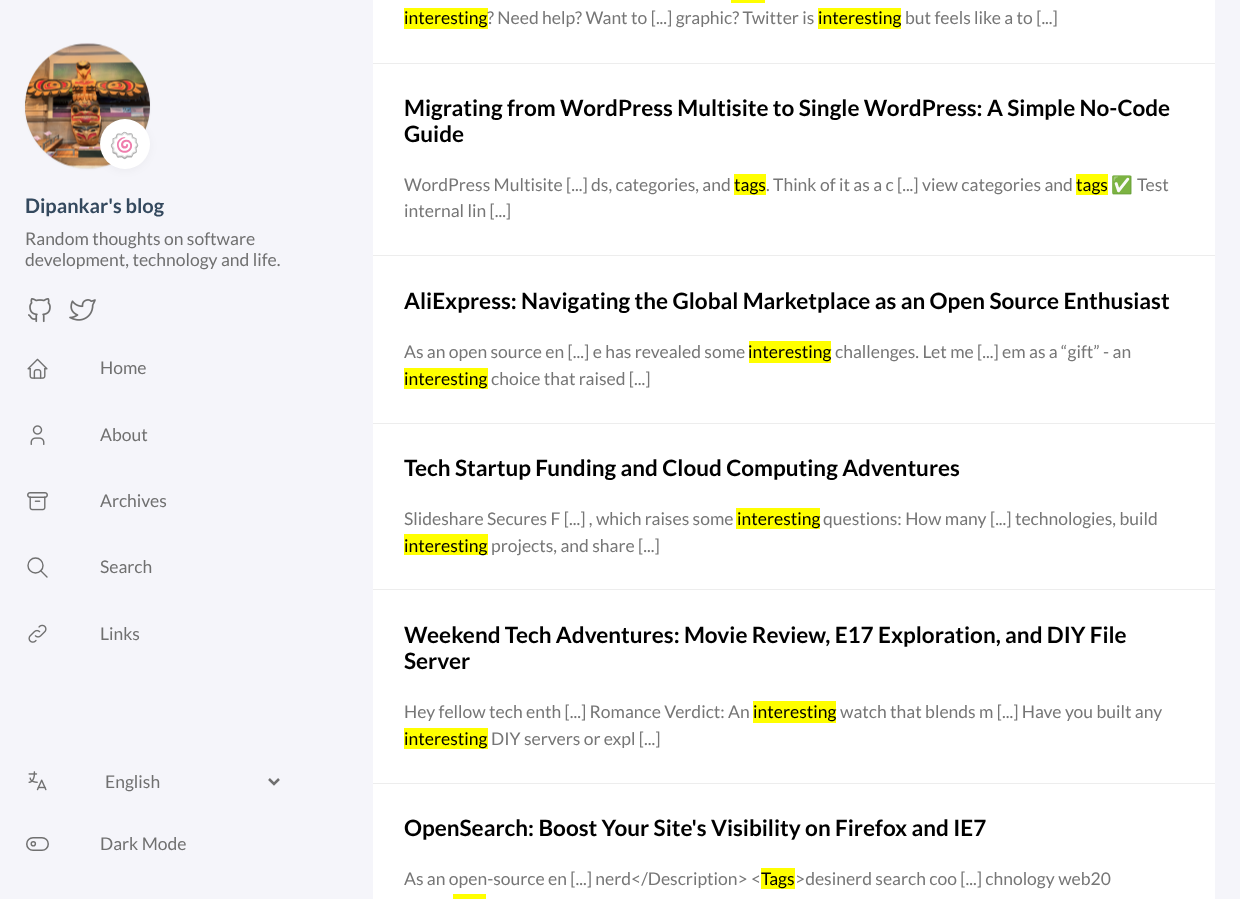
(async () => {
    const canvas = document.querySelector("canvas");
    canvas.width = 1240;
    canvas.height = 899;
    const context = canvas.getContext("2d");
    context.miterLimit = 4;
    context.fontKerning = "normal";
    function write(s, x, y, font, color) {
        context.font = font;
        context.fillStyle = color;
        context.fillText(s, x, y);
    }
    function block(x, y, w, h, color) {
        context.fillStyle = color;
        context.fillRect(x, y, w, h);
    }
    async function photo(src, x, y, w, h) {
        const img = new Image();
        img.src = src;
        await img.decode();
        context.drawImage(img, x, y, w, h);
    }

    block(0, 0, 1240, 899, "rgb(245, 245, 250)");
    context.fillStyle = "rgba(0, 0, 0, 0.06)";
    context.filter = "blur(1px)";
    context.beginPath();
    context.roundRect(25, 44, 125, 125, 62.5);
    context.fill();
    context.filter = "none";
    await photo("media/1.png", 25, 43, 125, 126);
    context.fillStyle = "rgba(0, 0, 0, 0.04)";
    context.filter = "blur(4px)";
    context.beginPath();
    context.roundRect(100, 121, 50, 50, 25);
    context.fill();
    context.filter = "none";
    context.fillStyle = "rgb(255, 255, 255)";
    context.beginPath();
    context.arc(125, 144, 25, 0, Math.PI * 2);
    context.fill();
    write("🍥", 109, 154, "25px Noto Color Emoji", "rgb(0, 0, 0)");
    write("Dipankar's blog", 25, 213, "bold 20px Lato", "rgb(52, 73, 94)");
    write("Random thoughts on software", 25, 245, "17.5px Lato", "rgb(112, 112, 112)");
    write("development, technology and life.", 25, 266, "17.5px Lato", "rgb(112, 112, 112)");
    await photo("media/2.png", 28, 298, 23, 25);
    await photo("media/3.png", 69, 299, 27, 22);
    await photo("media/4.png", 27, 358, 21, 21);
    write("Home", 100, 374, "17.5px Lato", "rgb(112, 112, 112)");
    await photo("media/5.png", 30, 425, 15, 20);
    write("About", 100, 441, "17.5px Lato", "rgb(112, 112, 112)");
    await photo("media/6.png", 27, 492, 21, 19);
    write("Archives", 100, 507, "17.5px Lato", "rgb(112, 112, 112)");
    context.beginPath();
    context.arc(35.5, 565.5, 7.5, 0, Math.PI * 2);
    context.strokeStyle = "rgb(112, 112, 112)";
    context.lineWidth = 1.4;
    context.stroke();
    context.beginPath();
    context.moveTo(47, 577);
    context.lineTo(40.5, 570.5);
    context.lineCap = "round";
    context.lineJoin = "round";
    context.stroke();
    write("Search", 100, 573, "17.5px Lato", "rgb(112, 112, 112)");
    await photo("media/7.png", 28, 624, 19, 19);
    write("Links", 100, 640, "17.5px Lato", "rgb(112, 112, 112)");
    await photo("media/8.png", 28, 771, 19, 20);
    context.beginPath();
    context.moveTo(269, 779);
    context.lineTo(274, 784);
    context.lineTo(279, 779);
    context.lineWidth = 2.5;
    context.lineCap = "butt";
    context.lineJoin = "miter";
    context.stroke();
    write("English", 105, 788, "17.5px Lato", "rgb(112, 112, 112)");
    context.beginPath();
    context.arc(33.3, 843.8, 2.1, 0, Math.PI * 2);
    context.lineWidth = 1.4;
    context.stroke();
    context.beginPath();
    context.roundRect(26.75, 837.75, 21.5, 12.5, 6.25);
    context.lineWidth = 1.5;
    context.stroke();
    write("Dark Mode", 100, 850, "17.5px Lato", "rgb(112, 112, 112)");
    block(373, 0, 842, 899, "rgb(255, 255, 255)");
    block(373, 63, 842, 1, "rgb(237, 237, 237)");
    block(731, 0, 34, 3, "rgb(255, 255, 0)");
    block(404, 8, 84, 21, "rgb(255, 255, 0)");
    write("interesting", 404, 24, "17.5px Lato", "rgb(0, 0, 0)");
    write("? Need help? Want to [...] graphic? Twitter is", 487, 24, "17.5px Lato", "rgb(118, 118, 118)");
    block(818, 8, 83, 21, "rgb(255, 255, 0)");
    write("interesting", 818, 24, "17.5px Lato", "rgb(0, 0, 0)");
    write("but feels like a to [...]", 905, 24, "17.5px Lato", "rgb(118, 118, 118)");
    block(373, 255, 842, 1, "rgb(237, 237, 237)");
    write("Migrating from WordPress Multisite to Single WordPress: A Simple No-Code", 404, 116, "bold 22.5px Lato", "rgb(0, 0, 0)");
    write("Guide", 404, 142, "bold 22.5px Lato", "rgb(0, 0, 0)");
    write("WordPress Multisite [...] ds, categories, and", 404, 191, "17.5px Lato", "rgb(118, 118, 118)");
    block(734, 174, 32, 21, "rgb(255, 255, 0)");
    write("tags", 734, 191, "17.5px Lato", "rgb(0, 0, 0)");
    write(". Think of it as a c [...] view categories and", 766, 191, "17.5px Lato", "rgb(118, 118, 118)");
    block(1076, 174, 32, 21, "rgb(255, 255, 0)");
    write("tags", 1076, 191, "17.5px Lato", "rgb(0, 0, 0)");
    write("✅", 1111, 191, "17.5px Noto Color Emoji", "rgb(118, 118, 118)");
    write("Test", 1137, 191, "17.5px Lato", "rgb(118, 118, 118)");
    write("internal lin [...]", 404, 217, "17.5px Lato", "rgb(118, 118, 118)");
    block(373, 423, 842, 1, "rgb(237, 237, 237)");
    write("AliExpress: Navigating the Global Marketplace as an Open Source Enthusiast", 404, 309, "bold 22.5px Lato", "rgb(0, 0, 0)");
    write("As an open source en [...] e has revealed some", 404, 358, "17.5px Lato", "rgb(118, 118, 118)");
    block(749, 341, 82, 22, "rgb(255, 255, 0)");
    write("interesting", 748, 358, "17.5px Lato", "rgb(0, 0, 0)");
    write("challenges. Let me [...] em as a “gift” - an", 835, 358, "17.5px Lato", "rgb(118, 118, 118)");
    block(404, 368, 84, 21, "rgb(255, 255, 0)");
    write("interesting", 404, 385, "17.5px Lato", "rgb(0, 0, 0)");
    write("choice that raised [...]", 491, 385, "17.5px Lato", "rgb(118, 118, 118)");
    block(373, 589, 842, 1, "rgb(237, 237, 237)");
    write("Tech Startup Funding and Cloud Computing Adventures", 404, 476, "bold 22.5px Lato", "rgb(0, 0, 0)");
    write("Slideshare Secures F [...] , which raises some", 404, 525, "17.5px Lato", "rgb(118, 118, 118)");
    block(736, 508, 84, 21, "rgb(255, 255, 0)");
    write("interesting", 737, 525, "17.5px Lato", "rgb(0, 0, 0)");
    write("questions: How many [...] technologies, build", 823, 525, "17.5px Lato", "rgb(118, 118, 118)");
    block(404, 534, 84, 21, "rgb(255, 255, 0)");
    write("interesting", 404, 552, "17.5px Lato", "rgb(0, 0, 0)");
    write("projects, and share [...]", 491, 552, "17.5px Lato", "rgb(118, 118, 118)");
    block(373, 783, 842, 1, "rgb(237, 237, 237)");
    write("Weekend Tech Adventures: Movie Review, E17 Exploration, and DIY File", 404, 643, "bold 22.5px Lato", "rgb(0, 0, 0)");
    write("Server", 404, 669, "bold 22.5px Lato", "rgb(0, 0, 0)");
    write("Hey fellow tech enth [...] Romance Verdict: An", 404, 718, "17.5px Lato", "rgb(118, 118, 118)");
    block(753, 701, 83, 22, "rgb(255, 255, 0)");
    write("interesting", 753, 718, "17.5px Lato", "rgb(0, 0, 0)");
    write("watch that blends m [...] Have you built any", 840, 718, "17.5px Lato", "rgb(118, 118, 118)");
    block(404, 728, 84, 21, "rgb(255, 255, 0)");
    write("interesting", 404, 745, "17.5px Lato", "rgb(0, 0, 0)");
    write("DIY servers or expl [...]", 491, 745, "17.5px Lato", "rgb(118, 118, 118)");
    write("OpenSearch: Boost Your Site's Visibility on Firefox and IE7", 404, 836, "bold 22.5px Lato", "rgb(0, 0, 0)");
    write("As an open-source en [...] nerd<\/Description> <", 404, 885, "17.5px Lato", "rgb(118, 118, 118)");
    block(761, 868, 34, 21, "rgb(255, 255, 0)");
    write("Tags", 761, 885, "17.5px Lato", "rgb(0, 0, 0)");
    write(">desinerd search coo [...] chnology web20", 795, 885, "17.5px Lato", "rgb(118, 118, 118)");
    block(453, 894, 33, 5, "rgb(255, 255, 0)");
})();
